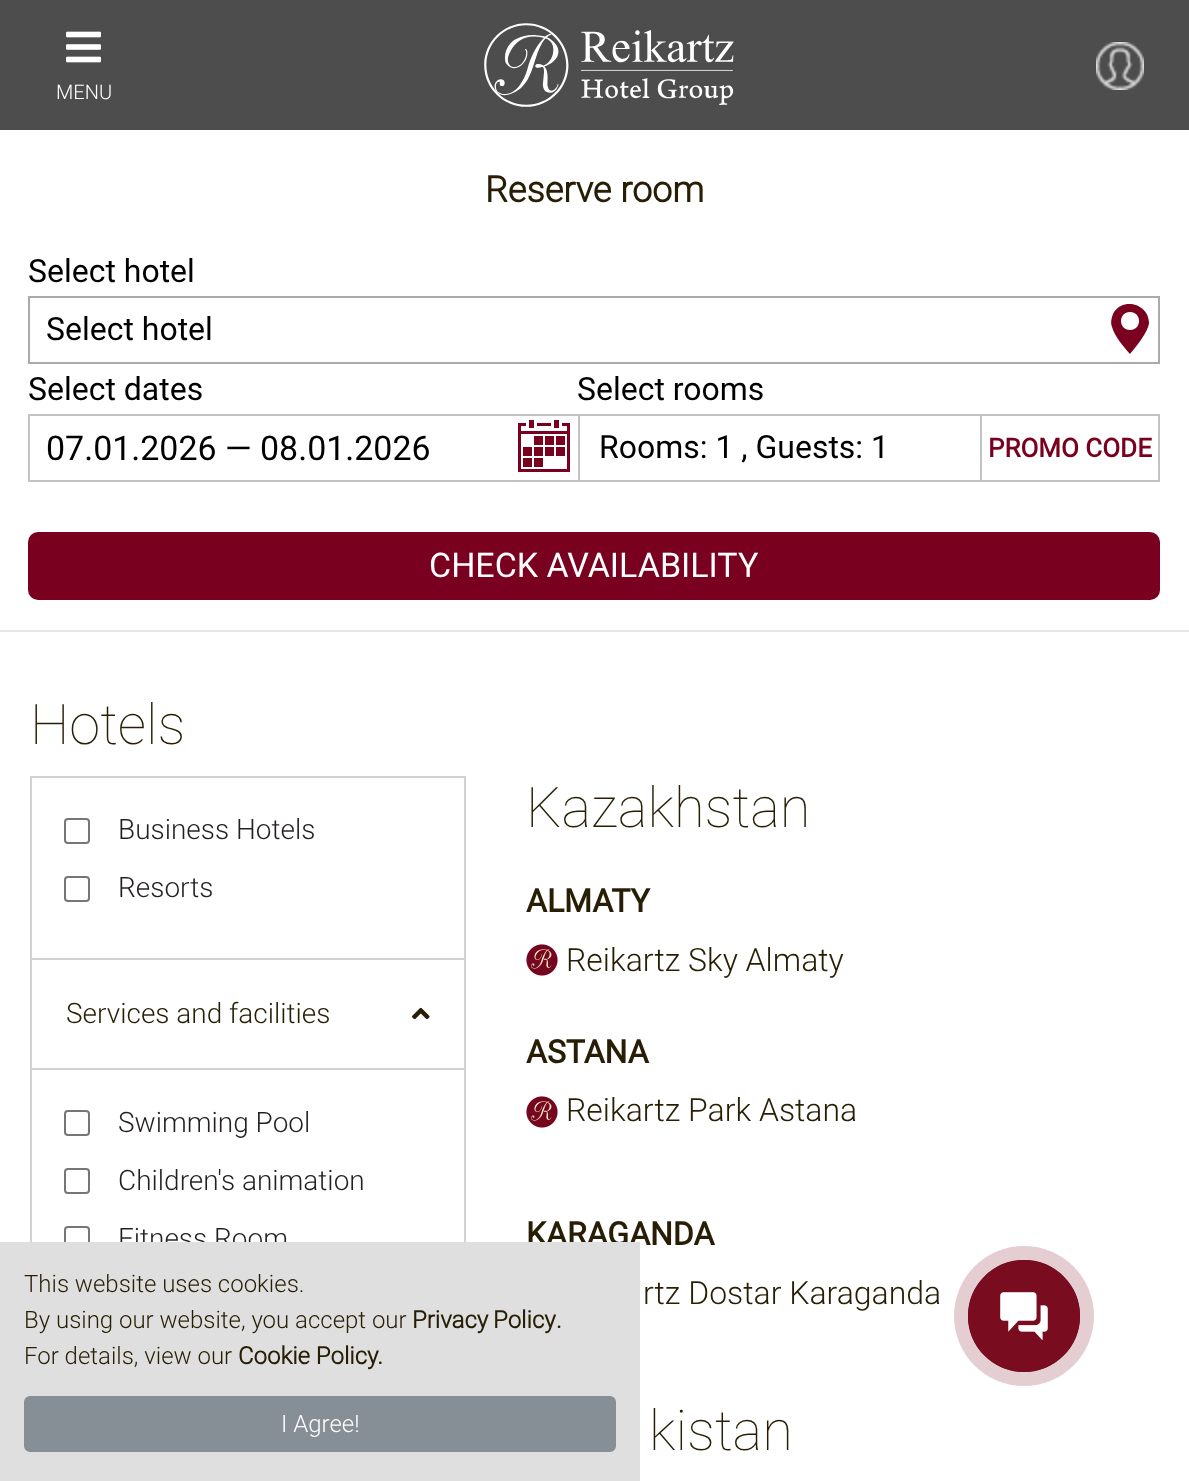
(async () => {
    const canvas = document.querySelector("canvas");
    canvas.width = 1189;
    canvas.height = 1481;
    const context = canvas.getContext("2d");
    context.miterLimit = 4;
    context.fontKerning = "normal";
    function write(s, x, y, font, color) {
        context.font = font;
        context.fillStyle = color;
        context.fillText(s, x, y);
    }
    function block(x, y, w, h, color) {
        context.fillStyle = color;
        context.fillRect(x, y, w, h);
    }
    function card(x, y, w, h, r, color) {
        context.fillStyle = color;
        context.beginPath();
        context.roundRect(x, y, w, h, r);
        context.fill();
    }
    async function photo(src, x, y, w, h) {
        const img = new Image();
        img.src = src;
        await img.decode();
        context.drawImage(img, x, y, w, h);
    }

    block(0, 0, 1189, 1481, "rgb(255, 255, 255)");
    block(0, 0, 1189, 130, "rgb(77, 77, 77)");
    await photo("media/1.png", 484, 23, 250, 84);
    await photo("media/2.png", 1096, 42, 48, 48);
    await photo("media/3.png", 66, 31, 35, 32);
    write("MENU", 56, 99, "300 20px Roboto", "rgb(255, 255, 255)");
    write("Reserve room", 485, 202, "bold 36px 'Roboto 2'", "rgb(40, 30, 5)");
    write("Select hotel", 28, 282, "32px Roboto", "rgb(0, 0, 0)");
    context.strokeStyle = "rgb(170, 170, 170)";
    context.lineWidth = 2;
    context.strokeRect(29, 297, 1130, 66);
    write("Select hotel", 46, 340, "32px Roboto", "rgb(0, 0, 0)");
    context.fillStyle = "rgb(121, 0, 30)";
    context.beginPath();
    context.moveTo(1130, 354);
    context.bezierCurveTo(1123, 346, 1115, 337, 1112, 327);
    context.bezierCurveTo(1110, 322, 1112, 316, 1114, 312);
    context.bezierCurveTo(1124, 297, 1149, 304, 1149, 323);
    context.bezierCurveTo(1148, 332, 1136, 347, 1130, 354);
    context.closePath();
    context.moveTo(1130, 312);
    context.bezierCurveTo(1118, 312, 1118, 330, 1130, 330);
    context.bezierCurveTo(1142, 330, 1142, 312, 1130, 312);
    context.closePath();
    context.fill();
    write("Select dates", 28, 400, "32px Roboto", "rgb(0, 0, 0)");
    context.strokeStyle = "rgb(194, 195, 195)";
    context.strokeRect(29, 415, 550, 66);
    write("07.01.2026 — 08.01.2026", 46, 460, "34px Roboto", "rgb(0, 0, 0)");
    await photo("media/4.png", 518, 420, 52, 52);
    write("Select rooms", 577, 400, "32px Roboto", "rgb(0, 0, 0)");
    context.strokeRect(579, 415, 402, 66);
    write("Rooms: 1 , Guests: 1", 599, 458, "32px Roboto", "rgb(0, 0, 0)");
    block(982, 414, 178, 2, "rgb(194, 195, 195)");
    block(1158, 414, 2, 68, "rgb(194, 195, 195)");
    block(982, 480, 178, 2, "rgb(194, 195, 195)");
    write("PROMO CODE", 988, 457, "bold 26px Roboto", "rgb(121, 0, 30)");
    card(28, 532, 1132, 68, 10, "rgb(121, 0, 30)");
    write("CHECK AVAILABILITY", 429, 577, "34px Roboto", "rgb(255, 255, 255)");
    block(0, 630, 1189, 2, "rgb(230, 230, 230)");
    write("Hotels", 30, 744, "100 56px Roboto", "rgb(40, 30, 5)");
    block(30, 776, 436, 2, "rgb(211, 210, 210)");
    block(464, 776, 2, 466, "rgb(211, 210, 210)");
    block(30, 776, 2, 466, "rgb(211, 210, 210)");
    block(32, 958, 432, 2, "rgb(211, 210, 210)");
    context.beginPath();
    context.roundRect(65, 819, 24, 24, 3);
    context.strokeStyle = "rgb(118, 118, 118)";
    context.stroke();
    write("Business Hotels", 118, 839, "300 28px Roboto", "rgb(35, 31, 32)");
    context.beginPath();
    context.roundRect(65, 877, 24, 24, 3);
    context.stroke();
    write("Resorts", 118, 897, "300 28px Roboto", "rgb(35, 31, 32)");
    block(32, 1068, 432, 2, "rgb(211, 210, 210)");
    write("Services and facilities", 66, 1023, "300 28px Roboto", "rgb(40, 30, 5)");
    await photo("media/5.png", 412, 1007, 18, 13);
    context.beginPath();
    context.roundRect(65, 1111, 24, 24, 3);
    context.stroke();
    write("Swimming Pool", 118, 1132, "300 28px Roboto", "rgb(35, 31, 32)");
    context.beginPath();
    context.roundRect(65, 1169, 24, 24, 3);
    context.stroke();
    write("Children's animation", 118, 1190, "300 28px Roboto", "rgb(35, 31, 32)");
    context.beginPath();
    context.roundRect(65, 1227, 24, 24, 3);
    context.stroke();
    write("Fitness Room", 118, 1248, "300 28px Roboto", "rgb(35, 31, 32)");
    write("Kazakhstan", 526, 827, "100 56px Roboto", "rgb(40, 30, 5)");
    write("ALMATY", 526, 912, "bold 32px Roboto", "rgb(40, 30, 5)");
    await photo("media/6.png", 526, 944, 32, 32);
    write("Reikartz Sky Almaty", 566, 971, "300 32px Roboto", "rgb(40, 30, 5)");
    write("ASTANA", 526, 1063, "bold 32px Roboto", "rgb(40, 30, 5)");
    await photo("media/6.png", 526, 1096, 32, 32);
    write("Reikartz Park Astana", 566, 1121, "300 32px Roboto", "rgb(40, 30, 5)");
    write("KARAGANDA", 526, 1245, "bold 32px Roboto", "rgb(40, 30, 5)");
    write("rtz Dostar Karaganda", 643, 1304, "300 32px Roboto", "rgb(40, 30, 5)");
    write("kistan", 649, 1450, "100 56px Roboto", "rgb(40, 30, 5)");
    context.fillStyle = "rgb(228, 206, 210)";
    context.beginPath();
    context.arc(1024, 1316, 70, 0, Math.PI * 2);
    context.fill();
    context.beginPath();
    context.arc(1024, 1316, 55, 0, Math.PI * 2);
    context.strokeStyle = "rgb(121, 12, 31)";
    context.stroke();
    context.fillStyle = "rgb(121, 12, 31)";
    context.beginPath();
    context.arc(1024, 1316, 56, 0, Math.PI * 2);
    context.fill();
    await photo("media/7.png", 1000, 1292, 48, 48);
    block(0, 1242, 640, 239, "rgb(222, 223, 222)");
    write("This website uses cookies.", 24, 1292, "300 24px Roboto", "rgb(40, 30, 5)");
    write("By using our website, you accept our", 24, 1328, "300 24px Roboto", "rgb(40, 30, 5)");
    context.wordSpacing = "-1px";
    write("Privacy Policy", 412, 1328, "bold 24px 'Roboto 2'", "rgb(40, 30, 5)");
    context.wordSpacing = "0px";
    write(".", 556, 1328, "bold 24px 'Roboto 2'", "rgb(40, 30, 5)");
    write("For details, view our", 24, 1364, "300 24px Roboto", "rgb(40, 30, 5)");
    write("Cookie Policy.", 238, 1364, "bold 24px 'Roboto 2'", "rgb(40, 30, 5)");
    context.fillStyle = "rgb(134, 142, 150)";
    context.beginPath();
    context.roundRect(25, 1397, 590, 54, 5);
    context.fill();
    context.strokeStyle = "rgb(134, 142, 150)";
    context.stroke();
    write("I Agree!", 281, 1432, "300 24px Roboto", "rgb(255, 255, 255)");
})();
